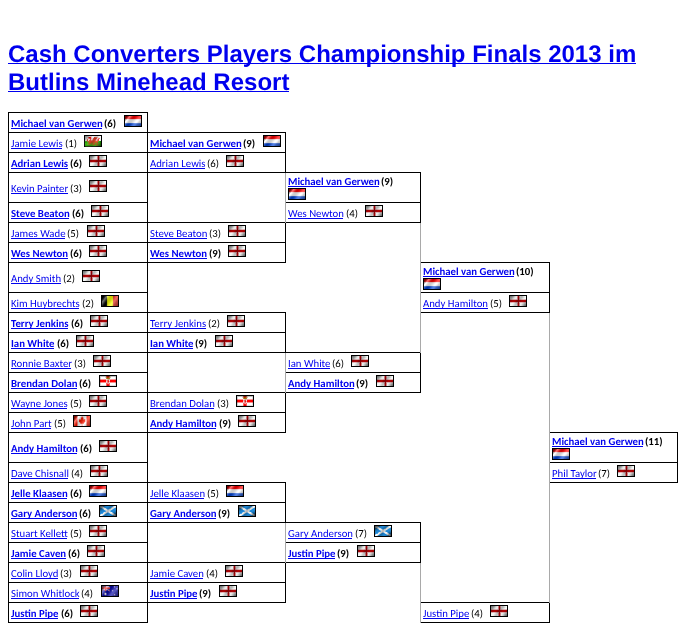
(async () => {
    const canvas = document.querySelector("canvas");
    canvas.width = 686;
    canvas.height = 623;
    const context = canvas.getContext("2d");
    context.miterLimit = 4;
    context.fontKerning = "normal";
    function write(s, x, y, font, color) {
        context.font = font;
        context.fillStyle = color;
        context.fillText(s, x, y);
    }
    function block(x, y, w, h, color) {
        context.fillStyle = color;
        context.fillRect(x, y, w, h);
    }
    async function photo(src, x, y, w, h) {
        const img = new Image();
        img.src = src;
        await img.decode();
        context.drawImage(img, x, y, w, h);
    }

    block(0, 0, 686, 623, "rgb(255, 255, 255)");
    block(8, 63, 628, 1, "rgb(0, 0, 238)");
    write("Cash Converters Players Championship Finals 2013 im", 8, 62, "bold 24px Liberation Sans", "rgb(0, 0, 238)");
    write("Butlins Minehead Resort", 8, 90, "bold 24px Liberation Sans", "rgb(0, 0, 238)");
    block(8, 91, 281, 1, "rgb(0, 0, 238)");
    block(8, 112, 140, 1, "rgb(0, 0, 0)");
    block(147, 132, 139, 1, "rgb(0, 0, 0)");
    block(147, 152, 139, 1, "rgb(0, 0, 0)");
    block(285, 172, 136, 1, "rgb(0, 0, 0)");
    block(420, 262, 130, 1, "rgb(0, 0, 0)");
    block(549, 432, 129, 1, "rgb(0, 0, 0)");
    block(677, 462, 1, 21, "rgb(0, 0, 0)");
    block(677, 432, 1, 31, "rgb(0, 0, 0)");
    block(420, 602, 130, 1, "rgb(0, 0, 0)");
    block(549, 602, 1, 21, "rgb(0, 0, 0)");
    block(549, 482, 1, 121, "rgb(169, 169, 169)");
    block(549, 482, 129, 1, "rgb(0, 0, 0)");
    block(549, 462, 1, 21, "rgb(169, 169, 169)");
    block(549, 462, 129, 1, "rgb(0, 0, 0)");
    block(549, 312, 1, 151, "rgb(169, 169, 169)");
    block(549, 292, 1, 21, "rgb(0, 0, 0)");
    block(549, 262, 1, 31, "rgb(0, 0, 0)");
    block(285, 352, 136, 1, "rgb(0, 0, 0)");
    block(420, 372, 1, 21, "rgb(0, 0, 0)");
    block(420, 352, 1, 21, "rgb(0, 0, 0)");
    block(420, 312, 1, 41, "rgb(169, 169, 169)");
    block(420, 312, 130, 1, "rgb(0, 0, 0)");
    block(420, 292, 1, 21, "rgb(169, 169, 169)");
    block(420, 292, 130, 1, "rgb(0, 0, 0)");
    block(420, 222, 1, 71, "rgb(169, 169, 169)");
    block(420, 202, 1, 21, "rgb(0, 0, 0)");
    block(420, 172, 1, 31, "rgb(0, 0, 0)");
    block(147, 222, 139, 1, "rgb(0, 0, 0)");
    block(147, 242, 139, 1, "rgb(0, 0, 0)");
    block(285, 242, 1, 21, "rgb(0, 0, 0)");
    block(285, 222, 1, 21, "rgb(0, 0, 0)");
    block(285, 222, 136, 1, "rgb(0, 0, 0)");
    block(285, 202, 1, 21, "rgb(169, 169, 169)");
    block(285, 202, 136, 1, "rgb(0, 0, 0)");
    block(285, 172, 1, 31, "rgb(169, 169, 169)");
    block(285, 152, 1, 21, "rgb(0, 0, 0)");
    block(8, 172, 140, 1, "rgb(0, 0, 0)");
    block(8, 202, 140, 1, "rgb(0, 0, 0)");
    block(8, 262, 140, 1, "rgb(0, 0, 0)");
    block(8, 292, 140, 1, "rgb(0, 0, 0)");
    block(147, 312, 139, 1, "rgb(0, 0, 0)");
    block(147, 332, 139, 1, "rgb(0, 0, 0)");
    block(147, 392, 139, 1, "rgb(0, 0, 0)");
    block(147, 412, 139, 1, "rgb(0, 0, 0)");
    block(285, 412, 1, 21, "rgb(0, 0, 0)");
    block(285, 392, 1, 21, "rgb(0, 0, 0)");
    block(285, 392, 136, 1, "rgb(0, 0, 0)");
    block(285, 372, 1, 21, "rgb(169, 169, 169)");
    block(285, 372, 136, 1, "rgb(0, 0, 0)");
    block(285, 352, 1, 21, "rgb(169, 169, 169)");
    block(285, 332, 1, 21, "rgb(0, 0, 0)");
    block(8, 352, 140, 1, "rgb(0, 0, 0)");
    block(8, 372, 140, 1, "rgb(0, 0, 0)");
    block(8, 432, 140, 1, "rgb(0, 0, 0)");
    block(8, 462, 140, 1, "rgb(0, 0, 0)");
    block(147, 482, 139, 1, "rgb(0, 0, 0)");
    block(147, 502, 139, 1, "rgb(0, 0, 0)");
    block(285, 522, 136, 1, "rgb(0, 0, 0)");
    block(420, 622, 130, 1, "rgb(0, 0, 0)");
    block(420, 562, 1, 61, "rgb(169, 169, 169)");
    block(420, 542, 1, 21, "rgb(0, 0, 0)");
    block(420, 522, 1, 21, "rgb(0, 0, 0)");
    block(147, 562, 139, 1, "rgb(0, 0, 0)");
    block(147, 582, 139, 1, "rgb(0, 0, 0)");
    block(285, 582, 1, 21, "rgb(0, 0, 0)");
    block(285, 562, 1, 21, "rgb(0, 0, 0)");
    block(285, 562, 136, 1, "rgb(0, 0, 0)");
    block(285, 542, 1, 21, "rgb(169, 169, 169)");
    block(285, 542, 136, 1, "rgb(0, 0, 0)");
    block(285, 522, 1, 21, "rgb(169, 169, 169)");
    block(285, 502, 1, 21, "rgb(0, 0, 0)");
    block(8, 522, 140, 1, "rgb(0, 0, 0)");
    block(8, 542, 140, 1, "rgb(0, 0, 0)");
    block(8, 602, 140, 1, "rgb(0, 0, 0)");
    block(8, 622, 140, 1, "rgb(0, 0, 0)");
    block(147, 602, 1, 21, "rgb(0, 0, 0)");
    block(147, 602, 139, 1, "rgb(0, 0, 0)");
    block(147, 582, 1, 21, "rgb(0, 0, 0)");
    block(8, 582, 140, 1, "rgb(0, 0, 0)");
    block(147, 562, 1, 21, "rgb(0, 0, 0)");
    block(8, 562, 140, 1, "rgb(0, 0, 0)");
    block(147, 542, 1, 21, "rgb(0, 0, 0)");
    block(147, 522, 1, 21, "rgb(0, 0, 0)");
    block(147, 522, 139, 1, "rgb(0, 0, 0)");
    block(147, 502, 1, 21, "rgb(0, 0, 0)");
    block(8, 502, 140, 1, "rgb(0, 0, 0)");
    block(147, 482, 1, 21, "rgb(0, 0, 0)");
    block(8, 482, 140, 1, "rgb(0, 0, 0)");
    block(147, 462, 1, 21, "rgb(0, 0, 0)");
    block(147, 432, 1, 31, "rgb(0, 0, 0)");
    block(147, 432, 139, 1, "rgb(0, 0, 0)");
    block(147, 412, 1, 21, "rgb(0, 0, 0)");
    block(8, 412, 140, 1, "rgb(0, 0, 0)");
    block(147, 392, 1, 21, "rgb(0, 0, 0)");
    block(8, 392, 140, 1, "rgb(0, 0, 0)");
    block(147, 372, 1, 21, "rgb(0, 0, 0)");
    block(147, 352, 1, 21, "rgb(0, 0, 0)");
    block(147, 352, 139, 1, "rgb(0, 0, 0)");
    block(147, 332, 1, 21, "rgb(0, 0, 0)");
    block(8, 332, 140, 1, "rgb(0, 0, 0)");
    block(147, 312, 1, 21, "rgb(0, 0, 0)");
    block(8, 312, 140, 1, "rgb(0, 0, 0)");
    block(147, 292, 1, 21, "rgb(0, 0, 0)");
    block(147, 262, 1, 31, "rgb(0, 0, 0)");
    block(147, 262, 139, 1, "rgb(0, 0, 0)");
    block(147, 242, 1, 21, "rgb(0, 0, 0)");
    block(8, 242, 140, 1, "rgb(0, 0, 0)");
    block(147, 222, 1, 21, "rgb(0, 0, 0)");
    block(8, 222, 140, 1, "rgb(0, 0, 0)");
    block(147, 202, 1, 21, "rgb(0, 0, 0)");
    block(147, 172, 1, 31, "rgb(0, 0, 0)");
    block(147, 172, 139, 1, "rgb(0, 0, 0)");
    block(147, 152, 1, 21, "rgb(0, 0, 0)");
    block(8, 152, 140, 1, "rgb(0, 0, 0)");
    block(147, 132, 1, 21, "rgb(0, 0, 0)");
    block(8, 132, 140, 1, "rgb(0, 0, 0)");
    block(147, 112, 1, 21, "rgb(0, 0, 0)");
    block(8, 602, 1, 21, "rgb(0, 0, 0)");
    block(8, 582, 1, 21, "rgb(0, 0, 0)");
    block(8, 562, 1, 21, "rgb(0, 0, 0)");
    block(8, 542, 1, 21, "rgb(0, 0, 0)");
    block(8, 522, 1, 21, "rgb(0, 0, 0)");
    block(8, 502, 1, 21, "rgb(0, 0, 0)");
    block(8, 482, 1, 21, "rgb(0, 0, 0)");
    block(8, 462, 1, 21, "rgb(0, 0, 0)");
    block(8, 432, 1, 31, "rgb(0, 0, 0)");
    block(8, 412, 1, 21, "rgb(0, 0, 0)");
    block(8, 392, 1, 21, "rgb(0, 0, 0)");
    block(8, 372, 1, 21, "rgb(0, 0, 0)");
    block(8, 352, 1, 21, "rgb(0, 0, 0)");
    block(8, 332, 1, 21, "rgb(0, 0, 0)");
    block(8, 312, 1, 21, "rgb(0, 0, 0)");
    block(8, 292, 1, 21, "rgb(0, 0, 0)");
    block(8, 262, 1, 31, "rgb(0, 0, 0)");
    block(8, 242, 1, 21, "rgb(0, 0, 0)");
    block(8, 222, 1, 21, "rgb(0, 0, 0)");
    block(8, 202, 1, 21, "rgb(0, 0, 0)");
    block(8, 172, 1, 31, "rgb(0, 0, 0)");
    block(8, 152, 1, 21, "rgb(0, 0, 0)");
    block(8, 132, 1, 21, "rgb(0, 0, 0)");
    block(8, 112, 1, 21, "rgb(0, 0, 0)");
    write("Michael van Gerwen", 11, 127, "bold 10.75px Carlito", "rgb(0, 0, 238)");
    block(11, 128, 91, 1, "rgb(0, 0, 238)");
    write("(6)", 104, 127, "bold 10.75px Carlito", "rgb(0, 0, 0)");
    await photo("media/1.png", 124, 115, 18, 12);
    write("Jamie Lewis", 11, 147, "10.75px Carlito", "rgb(0, 0, 238)");
    block(11, 148, 51, 1, "rgb(0, 0, 238)");
    write("(1)", 65, 147, "10.75px Carlito", "rgb(0, 0, 0)");
    await photo("media/2.png", 84, 135, 18, 12);
    block(285, 132, 1, 21, "rgb(0, 0, 0)");
    write("Michael van Gerwen", 150, 147, "bold 10.75px Carlito", "rgb(0, 0, 238)");
    block(150, 148, 91, 1, "rgb(0, 0, 238)");
    write("(9)", 243, 147, "bold 10.75px Carlito", "rgb(0, 0, 0)");
    await photo("media/1.png", 263, 135, 18, 12);
    write("Adrian Lewis", 11, 167, "bold 10.75px Carlito", "rgb(0, 0, 238)");
    block(11, 168, 57, 1, "rgb(0, 0, 238)");
    write("(6)", 70, 167, "bold 10.75px Carlito", "rgb(0, 0, 0)");
    await photo("media/3.png", 89, 155, 18, 12);
    write("Adrian Lewis", 150, 167, "10.75px Carlito", "rgb(0, 0, 238)");
    block(150, 168, 55, 1, "rgb(0, 0, 238)");
    write("(6)", 207, 167, "10.75px Carlito", "rgb(0, 0, 0)");
    await photo("media/3.png", 226, 155, 18, 12);
    write("Michael van Gerwen", 288, 185, "bold 10.75px Carlito", "rgb(0, 0, 238)");
    block(288, 186, 91, 1, "rgb(0, 0, 238)");
    write("(9)", 381, 185, "bold 10.75px Carlito", "rgb(0, 0, 0)");
    await photo("media/1.png", 288, 188, 18, 12);
    write("Kevin Painter", 11, 192, "10.75px Carlito", "rgb(0, 0, 238)");
    block(11, 193, 57, 1, "rgb(0, 0, 238)");
    write("(3)", 70, 192, "10.75px Carlito", "rgb(0, 0, 0)");
    await photo("media/3.png", 89, 180, 18, 12);
    write("Steve Beaton", 11, 217, "bold 10.75px Carlito", "rgb(0, 0, 238)");
    block(11, 218, 58, 1, "rgb(0, 0, 238)");
    write("(6)", 72, 217, "bold 10.75px Carlito", "rgb(0, 0, 0)");
    await photo("media/3.png", 91, 205, 18, 12);
    write("Wes Newton", 288, 217, "10.75px Carlito", "rgb(0, 0, 238)");
    block(288, 218, 55, 1, "rgb(0, 0, 238)");
    write("(4)", 346, 217, "10.75px Carlito", "rgb(0, 0, 0)");
    await photo("media/3.png", 365, 205, 18, 12);
    write("James Wade", 11, 237, "10.75px Carlito", "rgb(0, 0, 238)");
    block(11, 238, 54, 1, "rgb(0, 0, 238)");
    write("(5)", 67, 237, "10.75px Carlito", "rgb(0, 0, 0)");
    await photo("media/3.png", 87, 225, 18, 12);
    write("Steve Beaton", 150, 237, "10.75px Carlito", "rgb(0, 0, 238)");
    block(150, 238, 57, 1, "rgb(0, 0, 238)");
    write("(3)", 209, 237, "10.75px Carlito", "rgb(0, 0, 0)");
    await photo("media/3.png", 228, 225, 18, 12);
    write("Wes Newton", 11, 257, "bold 10.75px Carlito", "rgb(0, 0, 238)");
    block(11, 258, 57, 1, "rgb(0, 0, 238)");
    write("(6)", 70, 257, "bold 10.75px Carlito", "rgb(0, 0, 0)");
    await photo("media/3.png", 89, 245, 18, 12);
    write("Wes Newton", 150, 257, "bold 10.75px Carlito", "rgb(0, 0, 238)");
    block(150, 258, 57, 1, "rgb(0, 0, 238)");
    write("(9)", 209, 257, "bold 10.75px Carlito", "rgb(0, 0, 0)");
    await photo("media/3.png", 228, 245, 18, 12);
    write("Michael van Gerwen", 423, 275, "bold 10.75px Carlito", "rgb(0, 0, 238)");
    block(423, 276, 91, 1, "rgb(0, 0, 238)");
    write("(10)", 516, 275, "bold 10.75px Carlito", "rgb(0, 0, 0)");
    await photo("media/1.png", 423, 278, 18, 12);
    block(11, 283, 50, 1, "rgb(0, 0, 238)");
    write("Andy Smith", 11, 282, "10.75px Carlito", "rgb(0, 0, 238)");
    write("(2)", 63, 282, "10.75px Carlito", "rgb(0, 0, 0)");
    await photo("media/3.png", 82, 270, 18, 12);
    block(11, 308, 68, 1, "rgb(0, 0, 238)");
    write("Kim Huybrechts", 11, 307, "10.75px Carlito", "rgb(0, 0, 238)");
    write("(2)", 82, 307, "10.75px Carlito", "rgb(0, 0, 0)");
    await photo("media/4.png", 101, 295, 18, 12);
    block(423, 308, 65, 1, "rgb(0, 0, 238)");
    write("Andy Hamilton", 423, 307, "10.75px Carlito", "rgb(0, 0, 238)");
    write("(5)", 490, 307, "10.75px Carlito", "rgb(0, 0, 0)");
    await photo("media/3.png", 509, 295, 18, 12);
    block(11, 328, 57, 1, "rgb(0, 0, 238)");
    write("Terry Jenkins", 11, 327, "bold 10.75px Carlito", "rgb(0, 0, 238)");
    write("(6)", 71, 327, "bold 10.75px Carlito", "rgb(0, 0, 0)");
    await photo("media/3.png", 90, 315, 18, 12);
    block(285, 312, 1, 21, "rgb(0, 0, 0)");
    block(150, 328, 56, 1, "rgb(0, 0, 238)");
    write("Terry Jenkins", 150, 327, "10.75px Carlito", "rgb(0, 0, 238)");
    write("(2)", 208, 327, "10.75px Carlito", "rgb(0, 0, 0)");
    await photo("media/3.png", 227, 315, 18, 12);
    write("Ian White", 11, 347, "bold 10.75px Carlito", "rgb(0, 0, 238)");
    block(11, 348, 43, 1, "rgb(0, 0, 238)");
    write("(6)", 57, 347, "bold 10.75px Carlito", "rgb(0, 0, 0)");
    await photo("media/3.png", 76, 335, 18, 12);
    write("Ian White", 150, 347, "bold 10.75px Carlito", "rgb(0, 0, 238)");
    block(150, 348, 43, 1, "rgb(0, 0, 238)");
    write("(9)", 195, 347, "bold 10.75px Carlito", "rgb(0, 0, 0)");
    await photo("media/3.png", 215, 335, 18, 12);
    write("Ronnie Baxter", 11, 367, "10.75px Carlito", "rgb(0, 0, 238)");
    block(11, 368, 60, 1, "rgb(0, 0, 238)");
    write("(3)", 74, 367, "10.75px Carlito", "rgb(0, 0, 0)");
    await photo("media/3.png", 93, 355, 18, 12);
    write("Ian White", 288, 367, "10.75px Carlito", "rgb(0, 0, 238)");
    block(288, 368, 42, 1, "rgb(0, 0, 238)");
    write("(6)", 332, 367, "10.75px Carlito", "rgb(0, 0, 0)");
    await photo("media/3.png", 351, 355, 18, 12);
    write("Brendan Dolan", 11, 387, "bold 10.75px Carlito", "rgb(0, 0, 238)");
    block(11, 388, 66, 1, "rgb(0, 0, 238)");
    write("(6)", 79, 387, "bold 10.75px Carlito", "rgb(0, 0, 0)");
    await photo("media/5.png", 99, 375, 18, 12);
    block(288, 388, 66, 1, "rgb(0, 0, 238)");
    write("Andy Hamilton", 288, 387, "bold 10.75px Carlito", "rgb(0, 0, 238)");
    write("(9)", 356, 387, "bold 10.75px Carlito", "rgb(0, 0, 0)");
    await photo("media/3.png", 376, 375, 18, 12);
    block(11, 408, 56, 1, "rgb(0, 0, 238)");
    write("Wayne Jones", 11, 407, "10.75px Carlito", "rgb(0, 0, 238)");
    write("(5)", 70, 407, "10.75px Carlito", "rgb(0, 0, 0)");
    await photo("media/3.png", 89, 395, 18, 12);
    write("Brendan Dolan", 150, 407, "10.75px Carlito", "rgb(0, 0, 238)");
    block(150, 408, 64, 1, "rgb(0, 0, 238)");
    write("(3)", 217, 407, "10.75px Carlito", "rgb(0, 0, 0)");
    await photo("media/5.png", 236, 395, 18, 12);
    write("John Part", 11, 427, "10.75px Carlito", "rgb(0, 0, 238)");
    block(11, 428, 40, 1, "rgb(0, 0, 238)");
    write("(5)", 54, 427, "10.75px Carlito", "rgb(0, 0, 0)");
    await photo("media/6.png", 73, 415, 18, 12);
    block(150, 428, 66, 1, "rgb(0, 0, 238)");
    write("Andy Hamilton", 150, 427, "bold 10.75px Carlito", "rgb(0, 0, 238)");
    write("(9)", 219, 427, "bold 10.75px Carlito", "rgb(0, 0, 0)");
    await photo("media/3.png", 238, 415, 18, 12);
    write("Michael van Gerwen", 552, 445, "bold 10.75px Carlito", "rgb(0, 0, 238)");
    block(552, 446, 91, 1, "rgb(0, 0, 238)");
    write("(11)", 645, 445, "bold 10.75px Carlito", "rgb(0, 0, 0)");
    await photo("media/1.png", 552, 448, 18, 12);
    block(11, 453, 66, 1, "rgb(0, 0, 238)");
    write("Andy Hamilton", 11, 452, "bold 10.75px Carlito", "rgb(0, 0, 238)");
    write("(6)", 80, 452, "bold 10.75px Carlito", "rgb(0, 0, 0)");
    await photo("media/3.png", 99, 440, 18, 12);
    write("Dave Chisnall", 11, 477, "10.75px Carlito", "rgb(0, 0, 238)");
    block(11, 478, 57, 1, "rgb(0, 0, 238)");
    write("(4)", 71, 477, "10.75px Carlito", "rgb(0, 0, 0)");
    await photo("media/3.png", 90, 465, 18, 12);
    block(552, 478, 44, 1, "rgb(0, 0, 238)");
    write("Phil Taylor", 552, 477, "10.75px Carlito", "rgb(0, 0, 238)");
    write("(7)", 598, 477, "10.75px Carlito", "rgb(0, 0, 0)");
    await photo("media/3.png", 617, 465, 18, 12);
    write("Jelle Klaasen", 11, 497, "bold 10.75px Carlito", "rgb(0, 0, 238)");
    block(11, 498, 56, 1, "rgb(0, 0, 238)");
    write("(6)", 70, 497, "bold 10.75px Carlito", "rgb(0, 0, 0)");
    await photo("media/1.png", 89, 485, 18, 12);
    block(285, 482, 1, 21, "rgb(0, 0, 0)");
    write("Jelle Klaasen", 150, 497, "10.75px Carlito", "rgb(0, 0, 238)");
    block(150, 498, 54, 1, "rgb(0, 0, 238)");
    write("(5)", 207, 497, "10.75px Carlito", "rgb(0, 0, 0)");
    await photo("media/1.png", 226, 485, 18, 12);
    block(11, 518, 66, 1, "rgb(0, 0, 238)");
    write("Gary Anderson", 11, 517, "bold 10.75px Carlito", "rgb(0, 0, 238)");
    write("(6)", 79, 517, "bold 10.75px Carlito", "rgb(0, 0, 0)");
    await photo("media/7.png", 99, 505, 18, 12);
    block(150, 518, 66, 1, "rgb(0, 0, 238)");
    write("Gary Anderson", 150, 517, "bold 10.75px Carlito", "rgb(0, 0, 238)");
    write("(9)", 218, 517, "bold 10.75px Carlito", "rgb(0, 0, 0)");
    await photo("media/7.png", 238, 505, 18, 12);
    write("Stuart Kellett", 11, 537, "10.75px Carlito", "rgb(0, 0, 238)");
    block(11, 538, 56, 1, "rgb(0, 0, 238)");
    write("(5)", 70, 537, "10.75px Carlito", "rgb(0, 0, 0)");
    await photo("media/3.png", 89, 525, 18, 12);
    block(288, 538, 64, 1, "rgb(0, 0, 238)");
    write("Gary Anderson", 288, 537, "10.75px Carlito", "rgb(0, 0, 238)");
    write("(7)", 355, 537, "10.75px Carlito", "rgb(0, 0, 0)");
    await photo("media/7.png", 374, 525, 18, 12);
    write("Jamie Caven", 11, 557, "bold 10.75px Carlito", "rgb(0, 0, 238)");
    block(11, 558, 55, 1, "rgb(0, 0, 238)");
    write("(6)", 68, 557, "bold 10.75px Carlito", "rgb(0, 0, 0)");
    await photo("media/3.png", 87, 545, 18, 12);
    block(288, 558, 47, 1, "rgb(0, 0, 238)");
    write("Justin Pipe", 288, 557, "bold 10.75px Carlito", "rgb(0, 0, 238)");
    write("(9)", 337, 557, "bold 10.75px Carlito", "rgb(0, 0, 0)");
    await photo("media/3.png", 357, 545, 18, 12);
    block(11, 578, 47, 1, "rgb(0, 0, 238)");
    write("Colin Lloyd", 11, 577, "10.75px Carlito", "rgb(0, 0, 238)");
    write("(3)", 60, 577, "10.75px Carlito", "rgb(0, 0, 0)");
    await photo("media/3.png", 80, 565, 18, 12);
    write("Jamie Caven", 150, 577, "10.75px Carlito", "rgb(0, 0, 238)");
    block(150, 578, 53, 1, "rgb(0, 0, 238)");
    write("(4)", 206, 577, "10.75px Carlito", "rgb(0, 0, 0)");
    await photo("media/3.png", 225, 565, 18, 12);
    write("Simon Whitlock", 11, 597, "10.75px Carlito", "rgb(0, 0, 238)");
    block(11, 598, 68, 1, "rgb(0, 0, 238)");
    write("(4)", 81, 597, "10.75px Carlito", "rgb(0, 0, 0)");
    await photo("media/8.png", 101, 585, 18, 12);
    block(150, 598, 47, 1, "rgb(0, 0, 238)");
    write("Justin Pipe", 150, 597, "bold 10.75px Carlito", "rgb(0, 0, 238)");
    write("(9)", 199, 597, "bold 10.75px Carlito", "rgb(0, 0, 0)");
    await photo("media/3.png", 219, 585, 18, 12);
    block(11, 618, 47, 1, "rgb(0, 0, 238)");
    write("Justin Pipe", 11, 617, "bold 10.75px Carlito", "rgb(0, 0, 238)");
    write("(6)", 61, 617, "bold 10.75px Carlito", "rgb(0, 0, 0)");
    await photo("media/3.png", 80, 605, 18, 12);
    block(423, 618, 46, 1, "rgb(0, 0, 238)");
    write("Justin Pipe", 423, 617, "10.75px Carlito", "rgb(0, 0, 238)");
    write("(4)", 471, 617, "10.75px Carlito", "rgb(0, 0, 0)");
    await photo("media/3.png", 490, 605, 18, 12);
})();
